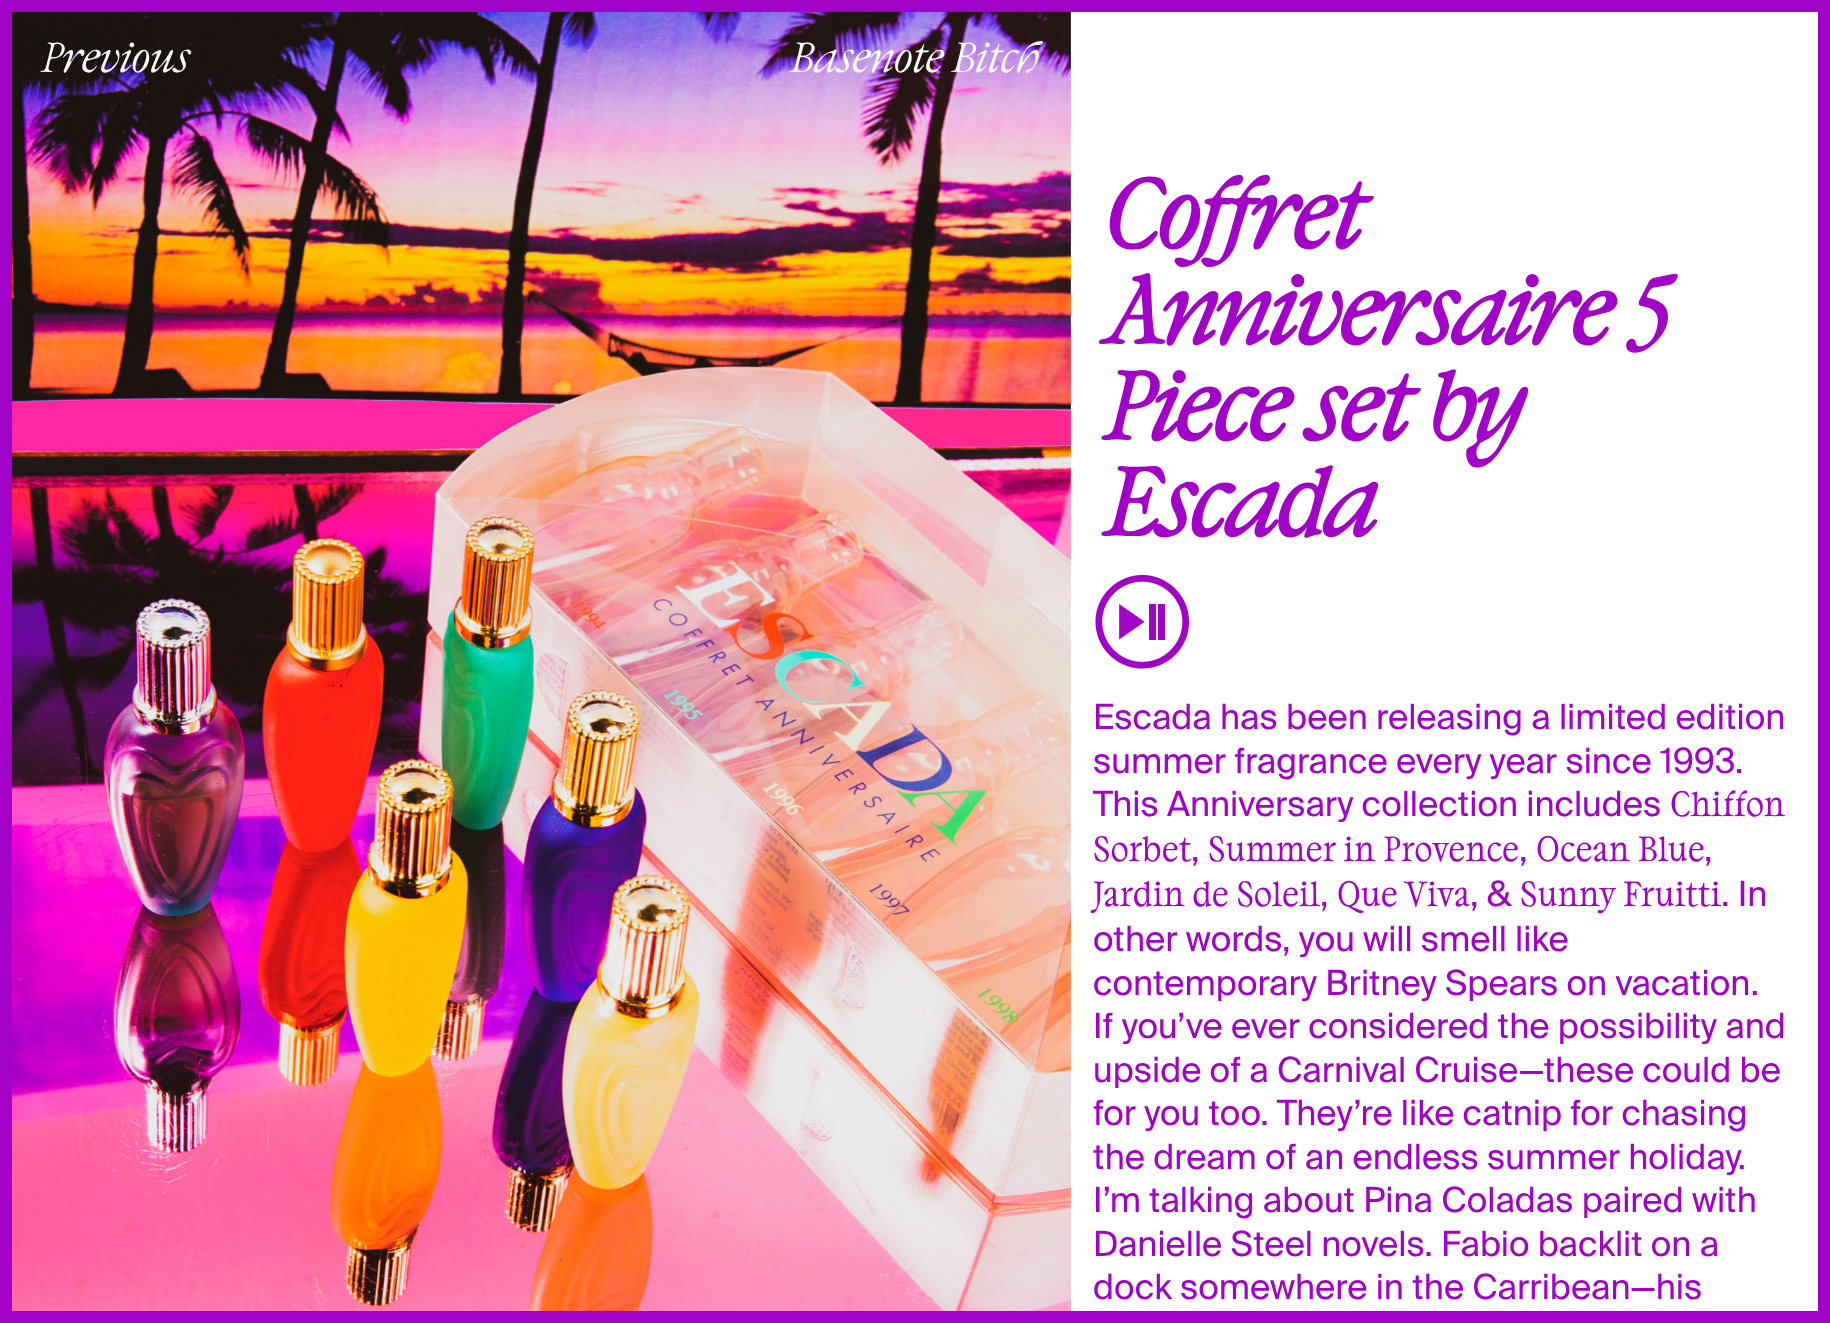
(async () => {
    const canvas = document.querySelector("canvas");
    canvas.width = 1830;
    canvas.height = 1323;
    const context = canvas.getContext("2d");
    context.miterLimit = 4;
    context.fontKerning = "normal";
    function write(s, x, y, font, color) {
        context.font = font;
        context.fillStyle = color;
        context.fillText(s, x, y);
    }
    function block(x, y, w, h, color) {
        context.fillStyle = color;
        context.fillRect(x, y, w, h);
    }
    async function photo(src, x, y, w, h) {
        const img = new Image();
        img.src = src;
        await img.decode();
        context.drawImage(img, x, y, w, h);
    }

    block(0, 0, 1830, 1323, "rgb(255, 255, 255)");
    block(0, 0, 12, 1323, "rgb(162, 2, 200)");
    block(12, 0, 1818, 12, "rgb(162, 2, 200)");
    await photo("media/1.png", 12, 12, 1059, 1299);
    write("Previous", 42, 72, "42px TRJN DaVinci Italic", "rgb(255, 255, 255)");
    write("Basenote Bitch", 791, 72, "42px TRJN DaVinci Italic", "rgb(255, 255, 255)");
    block(1818, 12, 12, 1311, "rgb(162, 2, 200)");
    context.letterSpacing = "-1.5px";
    write("Coffret", 1105, 248, "bold 96px TRJN DaVinci Italic", "rgb(162, 2, 200)");
    write("Anniversaire 5", 1105, 344, "bold 96px TRJN DaVinci Italic", "rgb(162, 2, 200)");
    write("Piece set by", 1105, 440, "bold 96px TRJN DaVinci Italic", "rgb(162, 2, 200)");
    write("Escada", 1105, 536, "bold 96px TRJN DaVinci Italic", "rgb(162, 2, 200)");
    await photo("media/2.png", 1095, 574, 95, 95);
    context.letterSpacing = "0px";
    write("Escada has been releasing a limited edition", 1093, 729, "34.75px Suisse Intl", "rgb(162, 2, 200)");
    write("summer fragrance every year since 1993.", 1093, 773, "34.75px Suisse Intl", "rgb(162, 2, 200)");
    write("This Anniversary collection includes", 1093, 816, "34.75px Suisse Intl", "rgb(162, 2, 200)");
    write("Chiffon", 1670, 816, "34.75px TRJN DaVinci", "rgb(162, 2, 200)");
    write("Sorbet", 1093, 861, "34.75px TRJN DaVinci", "rgb(162, 2, 200)");
    write(",", 1191, 861, "34.75px Suisse Intl", "rgb(162, 2, 200)");
    write("Summer in Provence", 1208, 861, "34.75px TRJN DaVinci", "rgb(162, 2, 200)");
    write(",", 1519, 861, "34.75px Suisse Intl", "rgb(162, 2, 200)");
    write("Ocean Blue", 1536, 861, "34.75px TRJN DaVinci", "rgb(162, 2, 200)");
    write(",", 1704, 861, "34.75px Suisse Intl", "rgb(162, 2, 200)");
    write("Jardin de Soleil", 1093, 906, "34.75px TRJN DaVinci", "rgb(162, 2, 200)");
    write(",", 1320, 906, "34.75px Suisse Intl", "rgb(162, 2, 200)");
    write("Que Viva", 1337, 906, "34.75px TRJN DaVinci", "rgb(162, 2, 200)");
    write(", &", 1470, 906, "34.75px Suisse Intl", "rgb(162, 2, 200)");
    write("Sunny Fruitti", 1520, 906, "34.75px TRJN DaVinci", "rgb(162, 2, 200)");
    write(". In", 1721, 906, "34.75px Suisse Intl", "rgb(162, 2, 200)");
    write("other words, you will smell like", 1093, 951, "34.75px Suisse Intl", "rgb(162, 2, 200)");
    write("contemporary Britney Spears on vacation.", 1093, 995, "34.75px Suisse Intl", "rgb(162, 2, 200)");
    write("If you’ve ever considered the possibility and", 1093, 1038, "34.75px Suisse Intl", "rgb(162, 2, 200)");
    write("upside of a Carnival Cruise—these could be", 1093, 1082, "34.75px Suisse Intl", "rgb(162, 2, 200)");
    write("for you too. They’re like catnip for chasing", 1093, 1125, "34.75px Suisse Intl", "rgb(162, 2, 200)");
    write("the dream of an endless summer holiday.", 1093, 1169, "34.75px Suisse Intl", "rgb(162, 2, 200)");
    write("I’m talking about Pina Coladas paired with", 1093, 1212, "34.75px Suisse Intl", "rgb(162, 2, 200)");
    write("Danielle Steel novels. Fabio backlit on a", 1093, 1256, "34.75px Suisse Intl", "rgb(162, 2, 200)");
    write("dock somewhere in the Carribean—his", 1093, 1299, "34.75px Suisse Intl", "rgb(162, 2, 200)");
    block(12, 1311, 1806, 12, "rgb(162, 2, 200)");
})();
